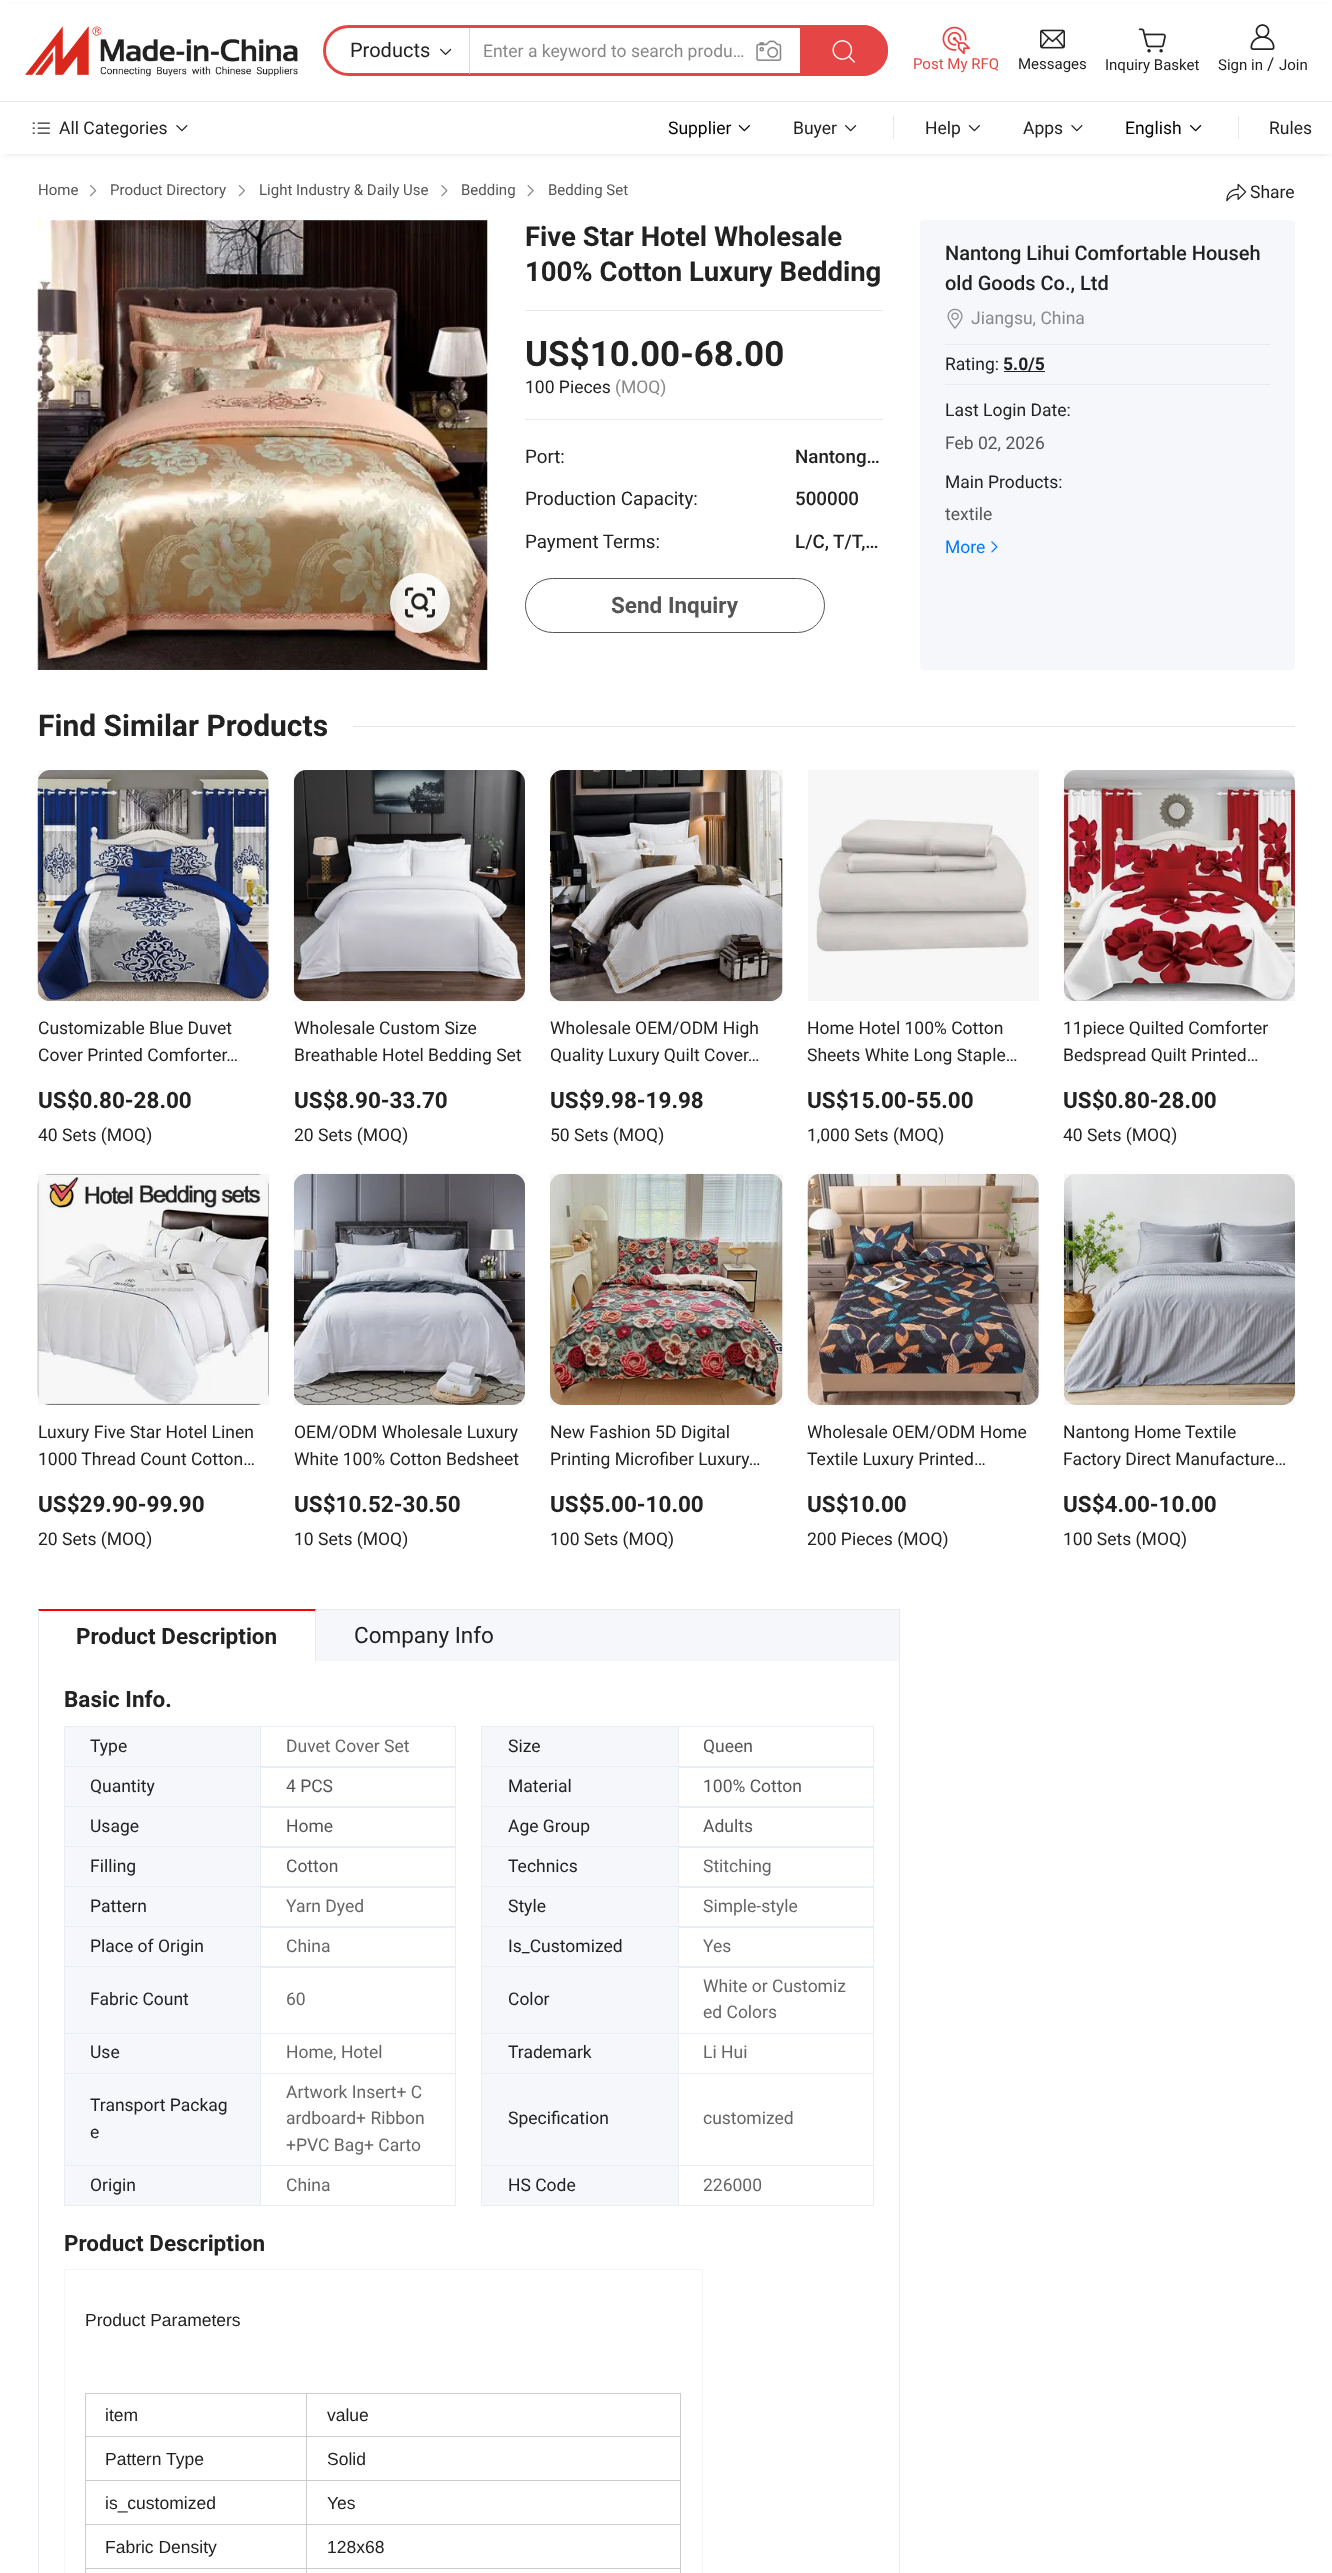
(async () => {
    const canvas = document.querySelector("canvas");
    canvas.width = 1332;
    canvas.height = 2573;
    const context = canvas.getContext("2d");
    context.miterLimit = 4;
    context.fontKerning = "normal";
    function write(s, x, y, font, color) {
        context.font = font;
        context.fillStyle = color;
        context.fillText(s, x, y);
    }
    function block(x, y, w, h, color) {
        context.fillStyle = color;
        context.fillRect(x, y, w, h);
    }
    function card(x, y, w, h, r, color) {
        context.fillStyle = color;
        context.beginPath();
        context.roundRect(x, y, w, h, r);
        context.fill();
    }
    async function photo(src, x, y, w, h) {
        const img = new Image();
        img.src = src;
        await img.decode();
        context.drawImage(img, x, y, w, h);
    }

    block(0, 0, 1332, 2573, "rgb(255, 255, 255)");
    context.fillStyle = "rgba(0, 0, 0, 0.12)";
    context.filter = "blur(3px)";
    context.beginPath();
    context.rect(4, 8, 1325, 146);
    context.fill();
    context.filter = "none";
    block(0, 4, 1332, 150, "rgb(255, 255, 255)");
    await photo("media/1.png", 25, 26, 273, 51);
    context.beginPath();
    context.roundRect(324.5, 26.5, 562, 48, 24);
    context.strokeStyle = "rgb(230, 69, 69)";
    context.lineWidth = 3;
    context.stroke();
    block(469, 28, 1, 46, "rgb(218, 218, 218)");
    write("Products", 350, 57, "20px Roboto", "rgb(34, 34, 34)");
    await photo("media/2.png", 440, 48, 12, 7);
    write("Enter a keyword to search produ…", 483, 57, "17.5px Roboto", "rgb(136, 136, 136)");
    await photo("media/3.png", 756, 40, 26, 21);
    context.fillStyle = "rgb(230, 69, 69)";
    context.beginPath();
    context.roundRect(800, 25, 88, 51, [0, 25.5, 25.5, 0]);
    context.fill();
    await photo("media/4.png", 832, 40, 23, 23);
    await photo("media/5.png", 942, 26, 28, 29);
    write("Post My RFQ", 913, 69, "15px Roboto", "rgb(230, 69, 69)");
    await photo("media/6.png", 1040, 29, 25, 20);
    write("Messages", 1018, 69, "15px Roboto", "rgb(34, 34, 34)");
    await photo("media/7.png", 1138, 28, 28, 25);
    write("Inquiry Basket", 1105, 70, "15px Roboto", "rgb(34, 34, 34)");
    await photo("media/8.png", 1250, 24, 25, 26);
    write("Sign in", 1218, 70, "15px Roboto", "rgb(34, 34, 34)");
    write("/", 1267, 70, "17.5px Roboto", "rgb(34, 34, 34)");
    write("Join", 1279, 70, "15px Roboto", "rgb(34, 34, 34)");
    block(0, 101, 1332, 1, "rgb(230, 231, 235)");
    await photo("media/9.png", 32, 122, 18, 12);
    write("All Categories", 59, 134, "17.5px Roboto", "rgb(34, 34, 34)");
    await photo("media/10.png", 176, 125, 12, 7);
    write("Supplier", 668, 134, "17.5px Roboto", "rgb(0, 0, 0)");
    await photo("media/11.png", 738, 125, 12, 7);
    write("Buyer", 793, 134, "17.5px Roboto", "rgb(34, 34, 34)");
    await photo("media/12.png", 845, 125, 12, 7);
    block(893, 116, 1, 23, "rgb(230, 231, 235)");
    write("Help", 925, 134, "17.5px Roboto", "rgb(34, 34, 34)");
    await photo("media/13.png", 968, 125, 12, 7);
    write("Apps", 1023, 134, "17.5px Roboto", "rgb(34, 34, 34)");
    await photo("media/10.png", 1071, 125, 12, 7);
    write("English", 1125, 134, "17.5px Roboto", "rgb(0, 0, 0)");
    await photo("media/14.png", 1190, 125, 12, 7);
    block(1238, 116, 1, 23, "rgb(230, 231, 235)");
    write("Rules", 1269, 134, "17.5px Roboto", "rgb(34, 34, 34)");
    write("Home", 38, 195, "15px Roboto", "rgb(85, 85, 85)");
    await photo("media/15.png", 90, 185, 7, 12);
    write("Product Directory", 110, 195, "15px Roboto", "rgb(85, 85, 85)");
    await photo("media/16.png", 238, 185, 7, 12);
    write("Light Industry & Daily Use", 259, 195, "15px Roboto", "rgb(85, 85, 85)");
    await photo("media/17.png", 441, 185, 7, 12);
    write("Bedding", 461, 195, "15px Roboto", "rgb(85, 85, 85)");
    await photo("media/18.png", 527, 185, 7, 12);
    write("Bedding Set", 548, 195, "15px Roboto", "rgb(85, 85, 85)");
    await photo("media/19.png", 1226, 183, 21, 19);
    write("Share", 1250, 198, "17.5px Roboto", "rgb(34, 34, 34)");
    await photo("media/20.png", 37, 220, 451, 450);
    context.fillStyle = "rgba(255, 255, 255, 0.88)";
    context.beginPath();
    context.arc(420, 603, 30, 0, Math.PI * 2);
    context.fill();
    await photo("media/21.png", 405, 587, 30, 31);
    block(525, 310, 358, 1, "rgb(230, 230, 230)");
    write("Five Star Hotel Wholesale", 525, 246, "bold 27.5px Roboto", "rgb(34, 34, 34)");
    write("100% Cotton Luxury Bedding", 525, 281, "bold 27.5px Roboto", "rgb(34, 34, 34)");
    block(525, 419, 358, 1, "rgb(230, 236, 242)");
    write("US$10.00-68.00", 525, 366, "bold 35px Roboto", "rgb(34, 34, 34)");
    write("100 Pieces", 525, 393, "17.5px Roboto", "rgb(34, 34, 34)");
    write("(MOQ)", 615, 393, "17.5px Roboto", "rgb(136, 136, 136)");
    write("Port:", 525, 463, "18.75px Roboto", "rgb(34, 34, 34)");
    write("Nantong…", 795, 463, "500 18.75px Roboto", "rgb(34, 34, 34)");
    write("Production Capacity:", 525, 505, "18.75px Roboto", "rgb(34, 34, 34)");
    write("500000", 795, 505, "500 18.75px Roboto", "rgb(34, 34, 34)");
    write("Payment Terms:", 525, 548, "18.75px Roboto", "rgb(34, 34, 34)");
    write("L/C, T/T,…", 795, 548, "500 18.75px Roboto", "rgb(34, 34, 34)");
    context.beginPath();
    context.roundRect(525.5, 578.5, 299, 54, 27);
    context.strokeStyle = "rgb(85, 85, 85)";
    context.lineWidth = 1;
    context.stroke();
    write("Send Inquiry", 611, 613, "bold 22.5px Roboto", "rgb(85, 85, 85)");
    card(920, 220, 375, 450, 4, "rgb(245, 247, 250)");
    write("Nantong Lihui Comfortable Househ", 945, 260, "500 20px Roboto", "rgb(34, 34, 34)");
    write("old Goods Co., Ltd", 945, 290, "500 20px Roboto", "rgb(34, 34, 34)");
    await photo("media/22.png", 947, 308, 16, 21);
    write("Jiangsu, China", 971, 324, "17.5px Roboto", "rgb(136, 136, 136)");
    block(945, 344, 325, 1, "rgb(230, 236, 242)");
    write("Rating:", 945, 370, "17.5px Roboto", "rgb(34, 34, 34)");
    block(1004, 371, 41, 1, "rgb(34, 34, 34)");
    write("5.0/5", 1003, 370, "bold 17.5px Roboto", "rgb(34, 34, 34)");
    block(945, 384, 325, 1, "rgb(230, 236, 242)");
    write("Last Login Date:", 945, 416, "17.5px Roboto", "rgb(34, 34, 34)");
    write("Feb 02, 2026", 945, 449, "17.5px Roboto", "rgb(85, 85, 85)");
    write("Main Products:", 945, 488, "17.5px Roboto", "rgb(34, 34, 34)");
    write("textile", 945, 520, "17.5px Roboto", "rgb(85, 85, 85)");
    write("More", 945, 553, "17.5px Roboto", "rgb(0, 122, 255)");
    await photo("media/23.png", 991, 541, 7, 12);
    write("Find Similar Products", 38, 736, "bold 30px Roboto", "rgb(34, 34, 34)");
    block(353, 726, 942, 1, "rgb(230, 230, 230)");
    await photo("media/24.png", 37, 770, 232, 232);
    block(38, 770, 231, 231, "rgba(0, 0, 0, 0.03)");
    write("Customizable Blue Duvet", 38, 1034, "17.5px Roboto", "rgb(34, 34, 34)");
    write("Cover Printed Comforter…", 38, 1061, "17.5px Roboto", "rgb(34, 34, 34)");
    write("US$0.80-28.00", 38, 1108, "bold 22.5px Roboto", "rgb(34, 34, 34)");
    write("40 Sets (MOQ)", 38, 1141, "17.5px Roboto", "rgb(34, 34, 34)");
    await photo("media/25.png", 293, 770, 232, 232);
    block(294, 770, 231, 231, "rgba(0, 0, 0, 0.03)");
    write("Wholesale Custom Size", 294, 1034, "17.5px Roboto", "rgb(34, 34, 34)");
    write("Breathable Hotel Bedding Set", 294, 1061, "17.5px Roboto", "rgb(34, 34, 34)");
    write("US$8.90-33.70", 294, 1108, "bold 22.5px Roboto", "rgb(34, 34, 34)");
    write("20 Sets (MOQ)", 294, 1141, "17.5px Roboto", "rgb(34, 34, 34)");
    await photo("media/26.png", 550, 770, 233, 232);
    block(550, 770, 233, 231, "rgba(0, 0, 0, 0.03)");
    write("Wholesale OEM/ODM High", 550, 1034, "17.5px Roboto", "rgb(34, 34, 34)");
    write("Quality Luxury Quilt Cover…", 550, 1061, "17.5px Roboto", "rgb(34, 34, 34)");
    write("US$9.98-19.98", 550, 1108, "bold 22.5px Roboto", "rgb(34, 34, 34)");
    write("50 Sets (MOQ)", 550, 1141, "17.5px Roboto", "rgb(34, 34, 34)");
    await photo("media/27.png", 815, 819, 215, 133);
    block(808, 770, 231, 231, "rgba(0, 0, 0, 0.03)");
    write("Home Hotel 100% Cotton", 807, 1034, "17.5px Roboto", "rgb(34, 34, 34)");
    write("Sheets White Long Staple…", 807, 1061, "17.5px Roboto", "rgb(34, 34, 34)");
    write("US$15.00-55.00", 807, 1108, "bold 22.5px Roboto", "rgb(34, 34, 34)");
    write("1,000 Sets (MOQ)", 807, 1141, "17.5px Roboto", "rgb(34, 34, 34)");
    await photo("media/28.png", 1063, 770, 232, 231);
    block(1064, 770, 231, 231, "rgba(0, 0, 0, 0.03)");
    write("11piece Quilted Comforter", 1063, 1034, "17.5px Roboto", "rgb(34, 34, 34)");
    write("Bedspread Quilt Printed…", 1063, 1061, "17.5px Roboto", "rgb(34, 34, 34)");
    write("US$0.80-28.00", 1063, 1108, "bold 22.5px Roboto", "rgb(34, 34, 34)");
    write("40 Sets (MOQ)", 1063, 1141, "17.5px Roboto", "rgb(34, 34, 34)");
    await photo("media/29.png", 37, 1173, 232, 232);
    block(38, 1174, 231, 231, "rgba(0, 0, 0, 0.03)");
    write("Luxury Five Star Hotel Linen", 38, 1438, "17.5px Roboto", "rgb(34, 34, 34)");
    write("1000 Thread Count Cotton…", 38, 1465, "17.5px Roboto", "rgb(34, 34, 34)");
    write("US$29.90-99.90", 38, 1512, "bold 22.5px Roboto", "rgb(34, 34, 34)");
    write("20 Sets (MOQ)", 38, 1545, "17.5px Roboto", "rgb(34, 34, 34)");
    await photo("media/30.png", 293, 1173, 232, 232);
    block(294, 1174, 231, 231, "rgba(0, 0, 0, 0.03)");
    write("OEM/ODM Wholesale Luxury", 294, 1438, "17.5px Roboto", "rgb(34, 34, 34)");
    write("White 100% Cotton Bedsheet", 294, 1465, "17.5px Roboto", "rgb(34, 34, 34)");
    write("US$10.52-30.50", 294, 1512, "bold 22.5px Roboto", "rgb(34, 34, 34)");
    write("10 Sets (MOQ)", 294, 1545, "17.5px Roboto", "rgb(34, 34, 34)");
    await photo("media/31.png", 550, 1173, 233, 232);
    block(550, 1174, 233, 231, "rgba(0, 0, 0, 0.03)");
    write("New Fashion 5D Digital", 550, 1438, "17.5px Roboto", "rgb(34, 34, 34)");
    write("Printing Microfiber Luxury…", 550, 1465, "17.5px Roboto", "rgb(34, 34, 34)");
    write("US$5.00-10.00", 550, 1512, "bold 22.5px Roboto", "rgb(34, 34, 34)");
    write("100 Sets (MOQ)", 550, 1545, "17.5px Roboto", "rgb(34, 34, 34)");
    await photo("media/32.png", 807, 1173, 232, 232);
    block(808, 1174, 231, 231, "rgba(0, 0, 0, 0.03)");
    context.save();
    context.beginPath();
    context.rect(808, 1418, 231, 56);
    context.clip();
    write("Wholesale OEM/ODM Home", 807, 1438, "17.5px Roboto", "rgb(34, 34, 34)");
    context.restore();
    write("Textile Luxury Printed…", 807, 1465, "17.5px Roboto", "rgb(34, 34, 34)");
    write("US$10.00", 807, 1512, "bold 22.5px Roboto", "rgb(34, 34, 34)");
    write("200 Pieces (MOQ)", 807, 1545, "17.5px Roboto", "rgb(34, 34, 34)");
    await photo("media/33.png", 1063, 1174, 232, 231);
    block(1064, 1174, 231, 231, "rgba(0, 0, 0, 0.03)");
    write("Nantong Home Textile", 1063, 1438, "17.5px Roboto", "rgb(34, 34, 34)");
    write("Factory Direct Manufacture…", 1063, 1465, "17.5px Roboto", "rgb(34, 34, 34)");
    write("US$4.00-10.00", 1063, 1512, "bold 22.5px Roboto", "rgb(34, 34, 34)");
    write("100 Sets (MOQ)", 1063, 1545, "17.5px Roboto", "rgb(34, 34, 34)");
    context.strokeStyle = "rgb(230, 236, 242)";
    context.strokeRect(38.5, 1609.5, 861, 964);
    block(316, 1610, 583, 51, "rgb(245, 247, 250)");
    block(38, 1609, 278, 52, "rgb(255, 255, 255)");
    context.fillStyle = "rgb(255, 0, 0)";
    context.beginPath();
    context.moveTo(38, 1609);
    context.lineTo(316, 1609);
    context.lineTo(315, 1611);
    context.lineTo(39, 1611);
    context.closePath();
    context.fill();
    context.fillStyle = "rgb(230, 236, 242)";
    context.beginPath();
    context.moveTo(316, 1609);
    context.lineTo(316, 1661);
    context.lineTo(315, 1661);
    context.lineTo(315, 1611);
    context.closePath();
    context.fill();
    context.beginPath();
    context.moveTo(38, 1661);
    context.lineTo(38, 1609);
    context.lineTo(39, 1611);
    context.lineTo(39, 1661);
    context.closePath();
    context.fill();
    write("Product Description", 76, 1644, "bold 22.5px Roboto", "rgb(34, 34, 34)");
    block(315, 1610, 1, 1, "rgb(230, 236, 242)");
    write("Company Info", 354, 1643, "22.5px Roboto", "rgb(34, 34, 34)");
    write("Basic Info.", 64, 1707, "bold 22.5px Roboto", "rgb(34, 34, 34)");
    block(65, 1727, 195, 39, "rgb(245, 247, 250)");
    block(64, 1726, 196, 1, "rgb(233, 238, 244)");
    block(64, 1726, 1, 42, "rgb(233, 238, 244)");
    write("Type", 90, 1752, "17.5px Roboto", "rgb(34, 34, 34)");
    context.strokeStyle = "rgb(233, 238, 244)";
    context.strokeRect(260.5, 1726.5, 195, 41);
    write("Duvet Cover Set", 286, 1752, "17.5px Roboto", "rgb(102, 102, 102)");
    block(482, 1727, 196, 39, "rgb(245, 247, 250)");
    block(481, 1726, 197, 1, "rgb(233, 238, 244)");
    block(481, 1726, 1, 42, "rgb(233, 238, 244)");
    write("Size", 508, 1752, "17.5px Roboto", "rgb(34, 34, 34)");
    context.strokeRect(678.5, 1726.5, 195, 41);
    write("Queen", 703, 1752, "17.5px Roboto", "rgb(85, 85, 85)");
    block(65, 1767, 195, 39, "rgb(245, 247, 250)");
    block(64, 1766, 196, 1, "rgb(233, 238, 244)");
    block(64, 1766, 1, 42, "rgb(233, 238, 244)");
    write("Quantity", 90, 1792, "17.5px Roboto", "rgb(34, 34, 34)");
    context.strokeRect(260.5, 1766.5, 195, 41);
    write("4 PCS", 286, 1792, "17.5px Roboto", "rgb(85, 85, 85)");
    block(482, 1767, 196, 39, "rgb(245, 247, 250)");
    block(481, 1766, 197, 1, "rgb(233, 238, 244)");
    block(481, 1766, 1, 42, "rgb(233, 238, 244)");
    write("Material", 508, 1792, "17.5px Roboto", "rgb(34, 34, 34)");
    context.strokeRect(678.5, 1766.5, 195, 41);
    write("100% Cotton", 703, 1792, "17.5px Roboto", "rgb(85, 85, 85)");
    block(65, 1807, 195, 39, "rgb(245, 247, 250)");
    block(64, 1806, 196, 1, "rgb(233, 238, 244)");
    block(64, 1806, 1, 42, "rgb(233, 238, 244)");
    write("Usage", 90, 1832, "17.5px Roboto", "rgb(34, 34, 34)");
    context.strokeRect(260.5, 1806.5, 195, 41);
    write("Home", 286, 1832, "17.5px Roboto", "rgb(85, 85, 85)");
    block(482, 1807, 196, 39, "rgb(245, 247, 250)");
    block(481, 1806, 197, 1, "rgb(233, 238, 244)");
    block(481, 1806, 1, 42, "rgb(233, 238, 244)");
    write("Age Group", 508, 1832, "17.5px Roboto", "rgb(34, 34, 34)");
    context.strokeRect(678.5, 1806.5, 195, 41);
    write("Adults", 703, 1832, "17.5px Roboto", "rgb(85, 85, 85)");
    block(65, 1847, 195, 39, "rgb(245, 247, 250)");
    block(64, 1846, 196, 1, "rgb(233, 238, 244)");
    block(64, 1846, 1, 42, "rgb(233, 238, 244)");
    write("Filling", 90, 1872, "17.5px Roboto", "rgb(34, 34, 34)");
    context.strokeRect(260.5, 1846.5, 195, 41);
    write("Cotton", 286, 1872, "17.5px Roboto", "rgb(85, 85, 85)");
    block(482, 1847, 196, 39, "rgb(245, 247, 250)");
    block(481, 1846, 197, 1, "rgb(233, 238, 244)");
    block(481, 1846, 1, 42, "rgb(233, 238, 244)");
    write("Technics", 508, 1872, "17.5px Roboto", "rgb(34, 34, 34)");
    context.strokeRect(678.5, 1846.5, 195, 41);
    write("Stitching", 703, 1872, "17.5px Roboto", "rgb(102, 102, 102)");
    block(65, 1887, 195, 39, "rgb(245, 247, 250)");
    block(64, 1886, 196, 1, "rgb(233, 238, 244)");
    block(64, 1886, 1, 42, "rgb(233, 238, 244)");
    write("Pattern", 90, 1912, "17.5px Roboto", "rgb(34, 34, 34)");
    context.strokeRect(260.5, 1886.5, 195, 41);
    write("Yarn Dyed", 286, 1912, "17.5px Roboto", "rgb(102, 102, 102)");
    block(482, 1887, 196, 39, "rgb(245, 247, 250)");
    block(481, 1886, 197, 1, "rgb(233, 238, 244)");
    block(481, 1886, 1, 42, "rgb(233, 238, 244)");
    write("Style", 508, 1912, "17.5px Roboto", "rgb(34, 34, 34)");
    context.strokeRect(678.5, 1886.5, 195, 41);
    write("Simple-style", 703, 1912, "17.5px Roboto", "rgb(102, 102, 102)");
    block(65, 1927, 195, 39, "rgb(245, 247, 250)");
    block(64, 1926, 196, 1, "rgb(233, 238, 244)");
    block(64, 1926, 1, 42, "rgb(233, 238, 244)");
    write("Place of Origin", 90, 1952, "17.5px Roboto", "rgb(34, 34, 34)");
    context.strokeRect(260.5, 1926.5, 195, 41);
    write("China", 286, 1952, "17.5px Roboto", "rgb(102, 102, 102)");
    block(482, 1927, 196, 39, "rgb(245, 247, 250)");
    block(481, 1926, 197, 1, "rgb(233, 238, 244)");
    block(481, 1926, 1, 42, "rgb(233, 238, 244)");
    write("Is_Customized", 508, 1952, "17.5px Roboto", "rgb(34, 34, 34)");
    context.strokeRect(678.5, 1926.5, 195, 41);
    write("Yes", 703, 1952, "17.5px Roboto", "rgb(102, 102, 102)");
    block(65, 1967, 195, 66, "rgb(245, 247, 250)");
    block(64, 1966, 196, 1, "rgb(233, 238, 244)");
    block(64, 1966, 1, 68, "rgb(233, 238, 244)");
    write("Fabric Count", 90, 2005, "17.5px Roboto", "rgb(34, 34, 34)");
    context.strokeRect(260.5, 1966.5, 195, 67);
    write("60", 286, 2005, "17.5px Roboto", "rgb(102, 102, 102)");
    block(482, 1967, 196, 66, "rgb(245, 247, 250)");
    block(481, 1966, 197, 1, "rgb(233, 238, 244)");
    block(481, 1966, 1, 68, "rgb(233, 238, 244)");
    write("Color", 508, 2005, "17.5px Roboto", "rgb(34, 34, 34)");
    context.strokeRect(678.5, 1966.5, 195, 67);
    write("White or Customiz", 703, 1992, "17.5px Roboto", "rgb(102, 102, 102)");
    write("ed Colors", 703, 2018, "17.5px Roboto", "rgb(102, 102, 102)");
    block(65, 2034, 195, 39, "rgb(245, 247, 250)");
    block(64, 2033, 196, 1, "rgb(233, 238, 244)");
    block(64, 2033, 1, 41, "rgb(233, 238, 244)");
    write("Use", 90, 2058, "17.5px Roboto", "rgb(34, 34, 34)");
    context.strokeRect(260.5, 2033.5, 195, 40);
    write("Home, Hotel", 286, 2058, "17.5px Roboto", "rgb(102, 102, 102)");
    block(482, 2034, 196, 39, "rgb(245, 247, 250)");
    block(481, 2033, 197, 1, "rgb(233, 238, 244)");
    block(481, 2033, 1, 41, "rgb(233, 238, 244)");
    write("Trademark", 508, 2058, "17.5px Roboto", "rgb(34, 34, 34)");
    context.strokeRect(678.5, 2033.5, 195, 40);
    write("Li Hui", 703, 2058, "17.5px Roboto", "rgb(102, 102, 102)");
    block(65, 2074, 195, 91, "rgb(245, 247, 250)");
    block(64, 2073, 196, 1, "rgb(233, 238, 244)");
    block(64, 2073, 1, 93, "rgb(233, 238, 244)");
    write("Transport Packag", 90, 2111, "17.5px Roboto", "rgb(34, 34, 34)");
    write("e", 90, 2138, "17.5px Roboto", "rgb(34, 34, 34)");
    context.strokeRect(260.5, 2073.5, 195, 92);
    write("Artwork Insert+ C", 286, 2098, "17.5px Roboto", "rgb(102, 102, 102)");
    write("ardboard+ Ribbon", 286, 2124, "17.5px Roboto", "rgb(102, 102, 102)");
    write("+PVC Bag+ Carto", 286, 2151, "17.5px Roboto", "rgb(102, 102, 102)");
    block(482, 2074, 196, 91, "rgb(245, 247, 250)");
    block(481, 2073, 197, 1, "rgb(233, 238, 244)");
    block(481, 2073, 1, 93, "rgb(233, 238, 244)");
    write("Specification", 508, 2124, "17.5px Roboto", "rgb(34, 34, 34)");
    context.strokeRect(678.5, 2073.5, 195, 92);
    write("customized", 703, 2124, "17.5px Roboto", "rgb(102, 102, 102)");
    block(65, 2166, 195, 39, "rgb(245, 247, 250)");
    block(64, 2165, 196, 1, "rgb(233, 238, 244)");
    block(64, 2205, 196, 1, "rgb(233, 238, 244)");
    block(64, 2165, 1, 41, "rgb(233, 238, 244)");
    write("Origin", 90, 2191, "17.5px Roboto", "rgb(34, 34, 34)");
    context.strokeRect(260.5, 2165.5, 195, 40);
    write("China", 286, 2191, "17.5px Roboto", "rgb(102, 102, 102)");
    block(482, 2166, 196, 39, "rgb(245, 247, 250)");
    block(481, 2165, 197, 1, "rgb(233, 238, 244)");
    block(481, 2205, 197, 1, "rgb(233, 238, 244)");
    block(481, 2165, 1, 41, "rgb(233, 238, 244)");
    write("HS Code", 508, 2191, "17.5px Roboto", "rgb(34, 34, 34)");
    context.strokeRect(678.5, 2165.5, 195, 40);
    write("226000", 703, 2191, "17.5px Roboto", "rgb(102, 102, 102)");
    write("Product Description", 64, 2251, "bold 22.5px Roboto", "rgb(34, 34, 34)");
    context.strokeStyle = "rgb(244, 244, 244)";
    context.strokeRect(64.5, 2269.5, 638, 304);
    write("Product Parameters", 85, 2326, "17.5px Liberation Sans", "rgb(34, 34, 34)");
    block(85, 2393, 596, 1, "rgb(204, 204, 204)");
    block(680, 2393, 1, 180, "rgb(204, 204, 204)");
    block(85, 2393, 1, 180, "rgb(204, 204, 204)");
    write("item", 105, 2421, "17.5px Liberation Sans", "rgb(34, 34, 34)");
    block(306, 2436, 375, 1, "rgb(204, 204, 204)");
    block(306, 2480, 375, 1, "rgb(204, 204, 204)");
    block(306, 2524, 375, 1, "rgb(204, 204, 204)");
    block(306, 2568, 375, 1, "rgb(204, 204, 204)");
    block(306, 2568, 1, 5, "rgb(204, 204, 204)");
    block(85, 2568, 223, 1, "rgb(204, 204, 204)");
    block(306, 2524, 1, 45, "rgb(204, 204, 204)");
    block(85, 2524, 223, 1, "rgb(204, 204, 204)");
    block(306, 2480, 1, 45, "rgb(204, 204, 204)");
    block(85, 2480, 223, 1, "rgb(204, 204, 204)");
    block(306, 2436, 1, 45, "rgb(204, 204, 204)");
    block(85, 2436, 223, 1, "rgb(204, 204, 204)");
    block(306, 2393, 1, 45, "rgb(204, 204, 204)");
    write("value", 327, 2421, "17.5px Liberation Sans", "rgb(34, 34, 34)");
    write("Pattern Type", 105, 2465, "17.5px Liberation Sans", "rgb(34, 34, 34)");
    write("Solid", 327, 2465, "17.5px Liberation Sans", "rgb(34, 34, 34)");
    write("is_customized", 105, 2509, "17.5px Liberation Sans", "rgb(34, 34, 34)");
    write("Yes", 327, 2509, "17.5px Liberation Sans", "rgb(34, 34, 34)");
    write("Fabric Density", 105, 2553, "17.5px Liberation Sans", "rgb(34, 34, 34)");
    write("128x68", 327, 2553, "17.5px Liberation Sans", "rgb(34, 34, 34)");
})();
